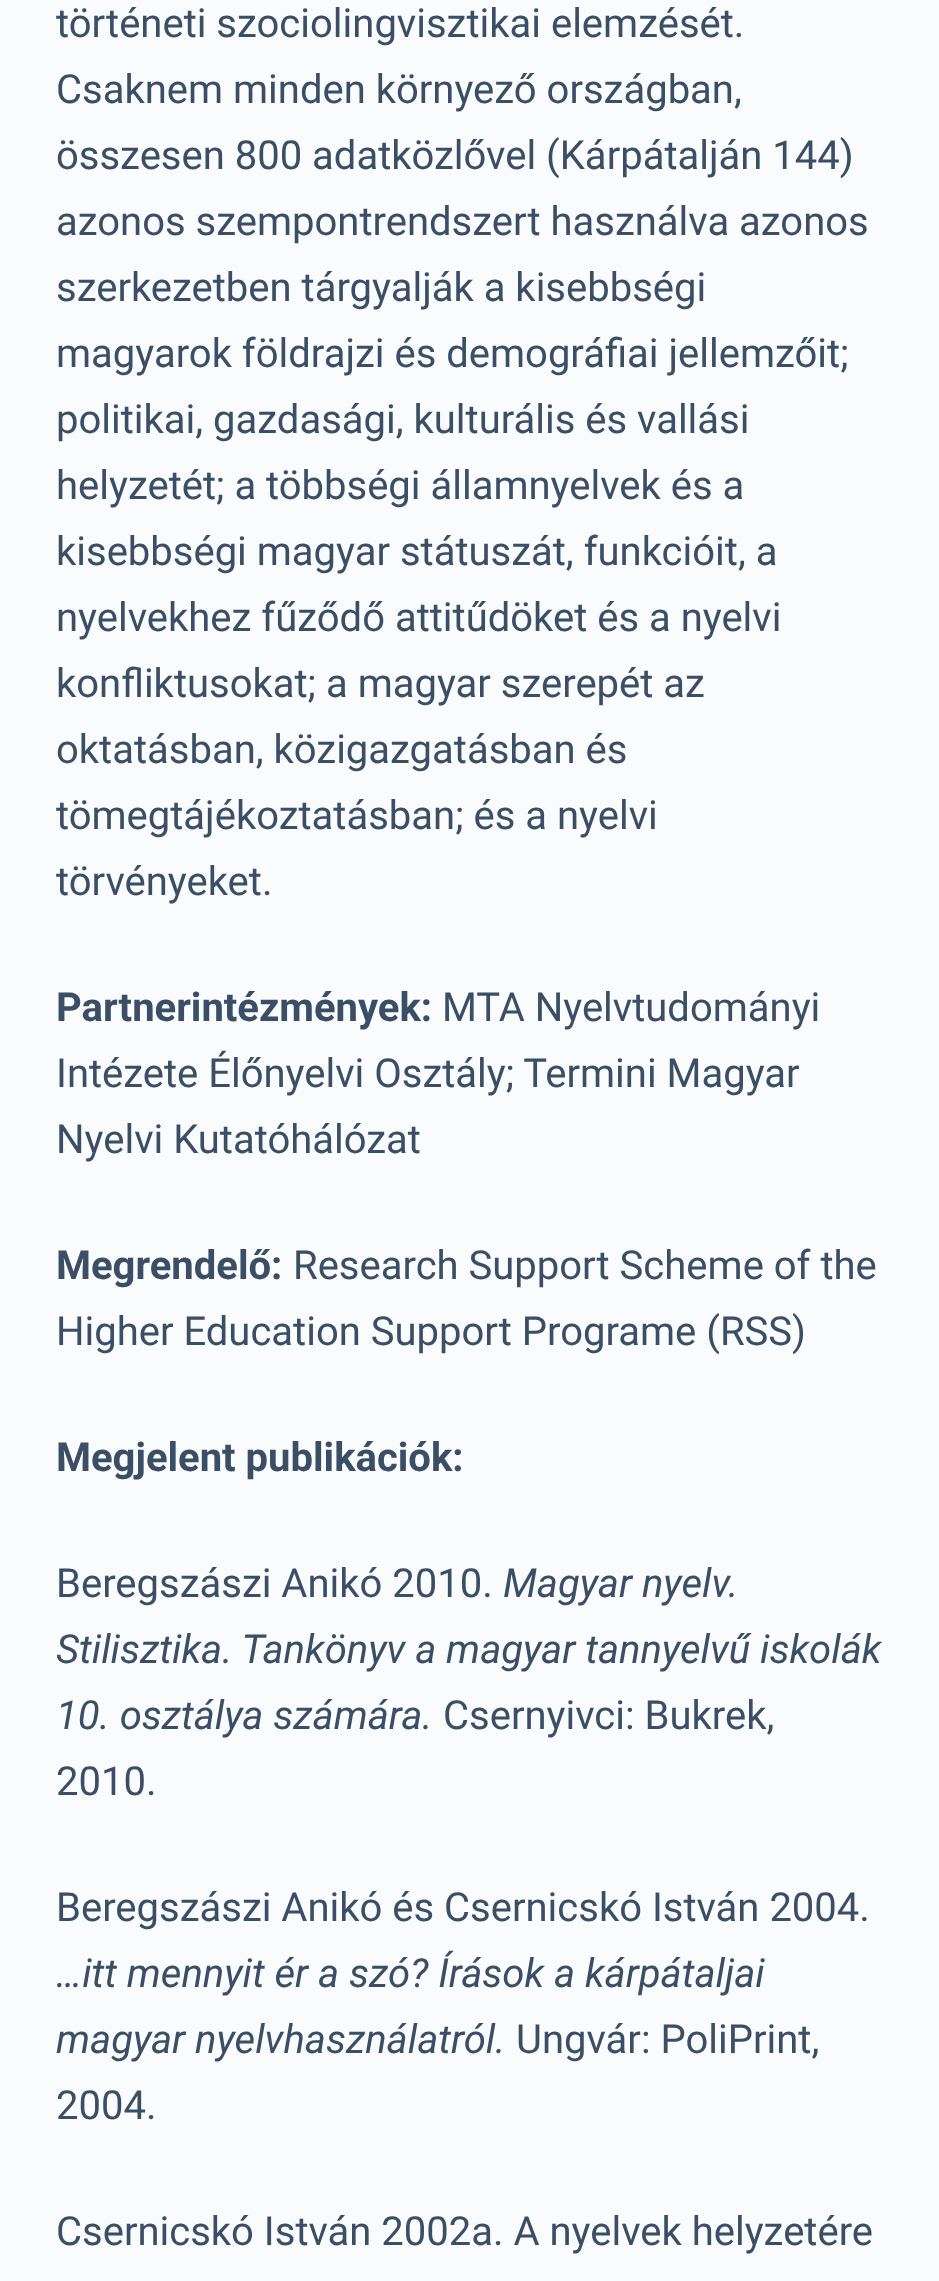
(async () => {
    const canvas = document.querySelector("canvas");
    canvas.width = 939;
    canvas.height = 2281;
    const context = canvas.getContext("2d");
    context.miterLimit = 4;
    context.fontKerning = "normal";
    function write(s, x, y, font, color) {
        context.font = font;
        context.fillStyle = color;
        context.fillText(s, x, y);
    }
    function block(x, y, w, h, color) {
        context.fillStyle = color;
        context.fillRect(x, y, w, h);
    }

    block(0, 0, 939, 2281, "rgb(250, 251, 252)");
    write("történeti szociolingvisztikai elemzését.", 56, 37, "40px Roboto", "rgb(58, 79, 102)");
    write("Csaknem minden környező országban,", 56, 103, "40px Roboto", "rgb(58, 79, 102)");
    write("összesen 800 adatközlővel (Kárpátalján 144)", 56, 169, "40px Roboto", "rgb(58, 79, 102)");
    write("azonos szempontrendszert használva azonos", 56, 235, "40px Roboto", "rgb(58, 79, 102)");
    write("szerkezetben tárgyalják a kisebbségi", 56, 301, "40px Roboto", "rgb(58, 79, 102)");
    write("magyarok földrajzi és demográfiai jellemzőit;", 56, 367, "40px Roboto", "rgb(58, 79, 102)");
    write("politikai, gazdasági, kulturális és vallási", 56, 433, "40px Roboto", "rgb(58, 79, 102)");
    write("helyzetét; a többségi államnyelvek és a", 56, 499, "40px Roboto", "rgb(58, 79, 102)");
    write("kisebbségi magyar státuszát, funkcióit, a", 56, 565, "40px Roboto", "rgb(58, 79, 102)");
    write("nyelvekhez fűződő attitűdöket és a nyelvi", 56, 631, "40px Roboto", "rgb(58, 79, 102)");
    write("konfliktusokat; a magyar szerepét az", 56, 697, "40px Roboto", "rgb(58, 79, 102)");
    write("oktatásban, közigazgatásban és", 56, 763, "40px Roboto", "rgb(58, 79, 102)");
    write("tömegtájékoztatásban; és a nyelvi", 56, 829, "40px Roboto", "rgb(58, 79, 102)");
    write("törvényeket.", 56, 895, "40px Roboto", "rgb(58, 79, 102)");
    write("Partnerintézmények:", 56, 1021, "bold 40px Roboto", "rgb(58, 79, 102)");
    write("MTA Nyelvtudományi", 442, 1021, "40px Roboto", "rgb(58, 79, 102)");
    write("Intézete Élőnyelvi Osztály; Termini Magyar", 56, 1087, "40px Roboto", "rgb(58, 79, 102)");
    write("Nyelvi Kutatóhálózat", 56, 1153, "40px Roboto", "rgb(58, 79, 102)");
    write("Megrendelő:", 56, 1279, "bold 40px Roboto", "rgb(58, 79, 102)");
    write("Research Support Scheme of the", 293, 1279, "40px Roboto", "rgb(58, 79, 102)");
    write("Higher Education Support Programe (RSS)", 56, 1345, "40px Roboto", "rgb(58, 79, 102)");
    write("Megjelent publikációk:", 56, 1471, "bold 40px Roboto", "rgb(58, 79, 102)");
    write("Beregszászi Anikó 2010.", 56, 1597, "40px Roboto", "rgb(58, 79, 102)");
    write("Magyar nyelv.", 503, 1597, "italic 40px Roboto", "rgb(58, 79, 102)");
    write("Stilisztika. Tankönyv a magyar tannyelvű iskolák", 56, 1663, "italic 40px Roboto", "rgb(58, 79, 102)");
    write("10. osztálya számára.", 56, 1729, "italic 40px Roboto", "rgb(58, 79, 102)");
    write("Csernyivci: Bukrek,", 443, 1729, "40px Roboto", "rgb(58, 79, 102)");
    write("2010.", 56, 1795, "40px Roboto", "rgb(58, 79, 102)");
    write("Beregszászi Anikó és Csernicskó István 2004.", 56, 1921, "40px Roboto", "rgb(58, 79, 102)");
    write("…itt mennyit ér a szó? Írások a kárpátaljai", 56, 1987, "italic 40px Roboto", "rgb(58, 79, 102)");
    write("magyar nyelvhasználatról.", 56, 2053, "italic 40px Roboto", "rgb(58, 79, 102)");
    write("Ungvár: PoliPrint,", 516, 2053, "40px Roboto", "rgb(58, 79, 102)");
    write("2004.", 56, 2119, "40px Roboto", "rgb(58, 79, 102)");
    write("Csernicskó István 2002a. A nyelvek helyzetére", 56, 2245, "40px Roboto", "rgb(58, 79, 102)");
})();
